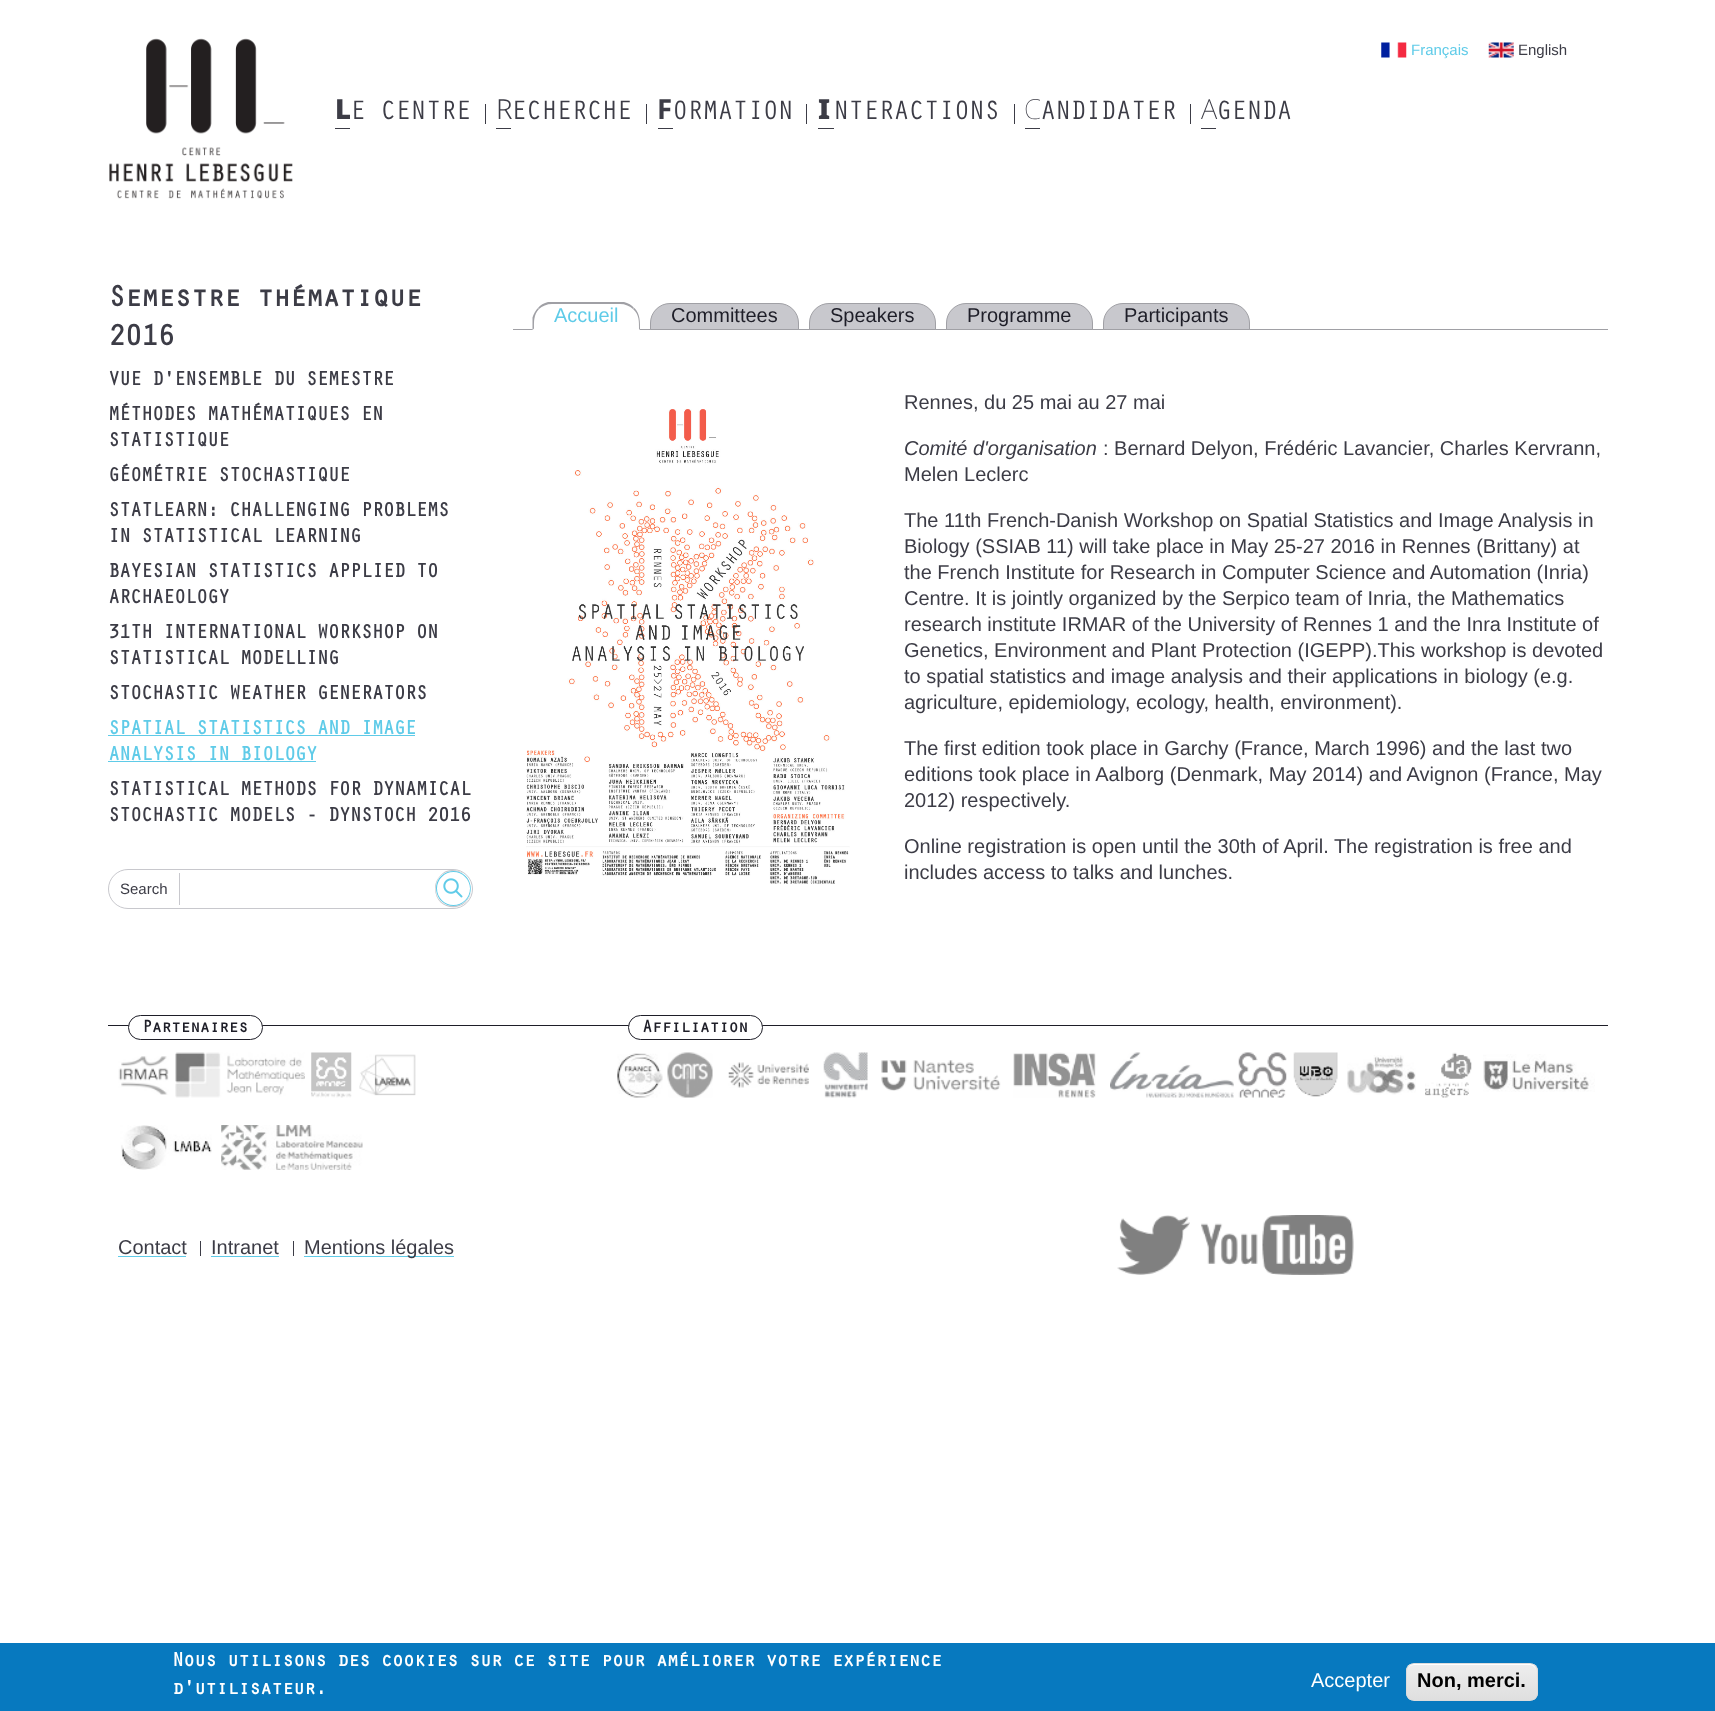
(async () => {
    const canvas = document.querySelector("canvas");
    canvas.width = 1715;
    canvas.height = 1711;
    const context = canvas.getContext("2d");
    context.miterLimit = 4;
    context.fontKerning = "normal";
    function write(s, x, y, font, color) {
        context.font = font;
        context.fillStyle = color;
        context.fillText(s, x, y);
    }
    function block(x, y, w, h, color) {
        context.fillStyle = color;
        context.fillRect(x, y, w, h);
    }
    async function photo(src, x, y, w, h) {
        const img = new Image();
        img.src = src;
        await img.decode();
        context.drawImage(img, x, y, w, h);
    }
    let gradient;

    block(0, 0, 1715, 1711, "rgb(255, 255, 255)");
    await photo("media/1.png", 109, 38, 184, 161);
    await photo("media/2.png", 1381, 42, 26, 16);
    write("Français", 1411, 55, "15px Liberation Sans", "rgb(95, 203, 232)");
    await photo("media/3.png", 1488, 42, 26, 16);
    write("English", 1518, 55, "15px Liberation Sans", "rgb(60, 60, 70)");
    context.letterSpacing = "-1.4px";
    write("L", 335, 119, "900 27.5px Noto Sans", "rgb(60, 60, 70)");
    block(335, 128, 15, 1, "rgb(60, 60, 70)");
    write("E CENTRE", 350, 119, "27.5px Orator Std", "rgb(60, 60, 70)");
    block(485, 104, 1, 20, "rgb(60, 60, 70)");
    write("R", 496, 119, "300 27.5px Noto Sans", "rgb(60, 60, 70)");
    block(496, 128, 15, 1, "rgb(60, 60, 70)");
    write("ECHERCHE", 511, 119, "27.5px Orator Std", "rgb(60, 60, 70)");
    block(646, 104, 1, 20, "rgb(60, 60, 70)");
    write("F", 657, 119, "bold 27.5px Noto Sans", "rgb(60, 60, 70)");
    block(658, 128, 15, 1, "rgb(60, 60, 70)");
    write("ORMATION", 672, 119, "27.5px Orator Std", "rgb(60, 60, 70)");
    block(806, 104, 1, 20, "rgb(60, 60, 70)");
    write("I", 818, 119, "900 27.5px Noto Sans", "rgb(60, 60, 70)");
    block(818, 128, 16, 1, "rgb(60, 60, 70)");
    write("NTERACTIONS", 833, 119, "27.5px Orator Std", "rgb(60, 60, 70)");
    block(1014, 104, 1, 20, "rgb(60, 60, 70)");
    write("C", 1024, 119, "100 27.5px Noto Sans", "rgb(60, 60, 70)");
    block(1025, 128, 15, 1, "rgb(60, 60, 70)");
    write("ANDIDATER", 1040, 119, "27.5px Orator Std", "rgb(60, 60, 70)");
    block(1190, 104, 1, 20, "rgb(60, 60, 70)");
    write("A", 1201, 119, "200 27.5px Noto Sans", "rgb(60, 60, 70)");
    block(1201, 128, 15, 1, "rgb(60, 60, 70)");
    write("GENDA", 1216, 119, "27.5px Orator Std", "rgb(60, 60, 70)");
    context.letterSpacing = "-1.5px";
    write("Semestre thématique", 108, 306, "bold 30px Orator Std", "rgb(60, 60, 70)");
    write("2016", 108, 345, "bold 30px Orator Std", "rgb(60, 60, 70)");
    context.letterSpacing = "-1px";
    write("VUE D'ENSEMBLE DU SEMESTRE", 108, 385, "bold 20px Orator Std", "rgb(60, 60, 70)");
    write("MÉTHODES MATHÉMATIQUES EN", 108, 420, "bold 20px Orator Std", "rgb(60, 60, 70)");
    write("STATISTIQUE", 108, 446, "bold 20px Orator Std", "rgb(60, 60, 70)");
    write("GÉOMÉTRIE STOCHASTIQUE", 108, 481, "bold 20px Orator Std", "rgb(60, 60, 70)");
    write("STATLEARN: CHALLENGING PROBLEMS", 108, 516, "bold 20px Orator Std", "rgb(60, 60, 70)");
    write("IN STATISTICAL LEARNING", 108, 542, "bold 20px Orator Std", "rgb(60, 60, 70)");
    write("BAYESIAN STATISTICS APPLIED TO", 108, 577, "bold 20px Orator Std", "rgb(60, 60, 70)");
    write("ARCHAEOLOGY", 108, 603, "bold 20px Orator Std", "rgb(60, 60, 70)");
    write("31TH INTERNATIONAL WORKSHOP ON", 108, 638, "bold 20px Orator Std", "rgb(60, 60, 70)");
    write("STATISTICAL MODELLING", 108, 664, "bold 20px Orator Std", "rgb(60, 60, 70)");
    write("STOCHASTIC WEATHER GENERATORS", 108, 699, "bold 20px Orator Std", "rgb(60, 60, 70)");
    write("SPATIAL STATISTICS AND IMAGE", 108, 734, "bold 20px Orator Std", "rgb(95, 203, 232)");
    block(108, 735, 307, 1, "rgb(95, 203, 232)");
    write("ANALYSIS IN BIOLOGY", 108, 760, "bold 20px Orator Std", "rgb(95, 203, 232)");
    block(108, 761, 208, 1, "rgb(95, 203, 232)");
    write("STATISTICAL METHODS FOR DYNAMICAL", 108, 795, "bold 20px Orator Std", "rgb(60, 60, 70)");
    write("STOCHASTIC MODELS - DYNSTOCH 2016", 108, 821, "bold 20px Orator Std", "rgb(60, 60, 70)");
    context.beginPath();
    context.roundRect(108.5, 869.5, 364, 39, 19.5);
    context.strokeStyle = "rgb(200, 200, 205)";
    context.stroke();
    block(179, 873, 1, 32, "rgb(200, 200, 205)");
    context.letterSpacing = "0px";
    write("Search", 120, 894, "15px Liberation Sans", "rgb(60, 60, 70)");
    context.fillStyle = "rgb(200, 200, 205)";
    context.beginPath();
    context.moveTo(453, 871);
    context.bezierCurveTo(457, 871, 461, 872, 464, 874);
    context.bezierCurveTo(459, 870, 449, 868, 443, 873);
    context.bezierCurveTo(438, 877, 435, 882, 435, 888);
    context.bezierCurveTo(435, 914, 471, 913, 471, 889);
    context.bezierCurveTo(471, 897, 465, 906, 453, 906);
    context.bezierCurveTo(430, 906, 430, 871, 453, 871);
    context.closePath();
    context.fill();
    await photo("media/4.png", 443, 878, 20, 20);
    context.fillStyle = "rgb(95, 203, 232)";
    context.beginPath();
    context.moveTo(453.5, 871);
    context.bezierCurveTo(470.5, 871, 477.5, 893.5, 463, 903);
    context.bezierCurveTo(460.5, 905, 457, 906, 453.5, 906);
    context.bezierCurveTo(436.5, 906, 429.5, 883.5, 443.5, 874);
    context.bezierCurveTo(446.5, 872, 450, 871, 453.5, 871);
    context.closePath();
    context.moveTo(453.5, 872);
    context.bezierCurveTo(444.5, 872, 437, 879.5, 437, 888.5);
    context.bezierCurveTo(437, 897.5, 444.5, 905, 453.5, 905);
    context.bezierCurveTo(462.5, 905, 470, 897.5, 470, 888.5);
    context.bezierCurveTo(470, 879.5, 462.5, 872, 453.5, 872);
    context.closePath();
    context.fill("evenodd");
    block(513, 329, 1095, 1, "rgb(160, 160, 165)");
    context.beginPath();
    context.moveTo(552, 304);
    context.bezierCurveTo(547, 304, 542, 306, 539, 309);
    context.lineTo(538, 308);
    context.bezierCurveTo(540, 305, 544, 303, 548, 302);
    context.lineTo(624, 302);
    context.bezierCurveTo(628, 303, 632, 305, 634, 308);
    context.lineTo(633, 309);
    context.bezierCurveTo(630, 306, 625, 304, 620, 304);
    context.closePath();
    context.fill();
    context.beginPath();
    context.moveTo(640, 330);
    context.bezierCurveTo(640, 322, 640.5, 314.5, 634.5, 308);
    context.lineTo(633, 309);
    context.bezierCurveTo(639.5, 315, 639, 321.5, 639, 329);
    context.closePath();
    context.fill();
    context.fillStyle = "rgb(255, 255, 255)";
    context.beginPath();
    context.moveTo(640, 330);
    context.lineTo(639, 329);
    context.lineTo(534, 329);
    context.lineTo(534, 328);
    context.lineTo(532, 330);
    context.closePath();
    context.fill();
    context.fillStyle = "rgb(160, 160, 165)";
    context.beginPath();
    context.moveTo(532.5, 330);
    context.lineTo(532.5, 317.5);
    context.bezierCurveTo(533.5, 314, 535.5, 310.5, 538, 308);
    context.lineTo(539, 309);
    context.bezierCurveTo(533.5, 315, 534, 321.5, 534, 328.5);
    context.closePath();
    context.fill();
    write("Accueil", 554, 322, "20px Liberation Sans", "rgb(95, 203, 232)");
    context.fillStyle = "rgb(200, 200, 205)";
    context.beginPath();
    context.roundRect(650.5, 303.5, 148, 26, [19.5, 19.5, 0, 0]);
    context.fill();
    context.strokeStyle = "rgb(160, 160, 165)";
    context.stroke();
    write("Committees", 671, 322, "20px Liberation Sans", "rgb(30, 30, 40)");
    context.fillStyle = "rgb(200, 200, 205)";
    context.beginPath();
    context.roundRect(809.5, 303.5, 126, 26, [19.5, 19.5, 0, 0]);
    context.fill();
    context.stroke();
    write("Speakers", 830, 322, "20px Liberation Sans", "rgb(30, 30, 40)");
    context.fillStyle = "rgb(200, 200, 205)";
    context.beginPath();
    context.roundRect(946.5, 303.5, 146, 26, [19.5, 19.5, 0, 0]);
    context.fill();
    context.stroke();
    write("Programme", 967, 322, "20px Liberation Sans", "rgb(30, 30, 40)");
    context.fillStyle = "rgb(200, 200, 205)";
    context.beginPath();
    context.roundRect(1103.5, 303.5, 146, 26, [19.5, 19.5, 0, 0]);
    context.fill();
    context.stroke();
    write("Participants", 1124, 322, "20px Liberation Sans", "rgb(30, 30, 40)");
    await photo("media/5.png", 526, 409, 324, 475);
    write("Rennes, du 25 mai au 27 mai", 904, 409, "20px Liberation Sans", "rgb(60, 60, 70)");
    write("Comité d'organisation", 904, 455, "italic 20px Liberation Sans", "rgb(60, 60, 70)");
    write(": Bernard Delyon, Frédéric Lavancier, Charles Kervrann,", 1103, 455, "20px Liberation Sans", "rgb(60, 60, 70)");
    write("Melen Leclerc", 904, 481, "20px Liberation Sans", "rgb(60, 60, 70)");
    write("The 11th French-Danish Workshop on Spatial Statistics and Image Analysis in", 904, 527, "20px Liberation Sans", "rgb(60, 60, 70)");
    write("Biology (SSIAB 11) will take place in May 25-27 2016 in Rennes (Brittany) at", 904, 553, "20px Liberation Sans", "rgb(60, 60, 70)");
    write("the French Institute for Research in Computer Science and Automation (Inria)", 904, 579, "20px Liberation Sans", "rgb(60, 60, 70)");
    write("Centre. It is jointly organized by the Serpico team of Inria, the Mathematics", 904, 605, "20px Liberation Sans", "rgb(60, 60, 70)");
    write("research institute IRMAR of the University of Rennes 1 and the Inra Institute of", 904, 631, "20px Liberation Sans", "rgb(60, 60, 70)");
    write("Genetics, Environment and Plant Protection (IGEPP).This workshop is devoted", 904, 657, "20px Liberation Sans", "rgb(60, 60, 70)");
    write("to spatial statistics and image analysis and their applications in biology (e.g.", 904, 683, "20px Liberation Sans", "rgb(60, 60, 70)");
    write("agriculture, epidemiology, ecology, health, environment).", 904, 709, "20px Liberation Sans", "rgb(60, 60, 70)");
    write("The first edition took place in Garchy (France, March 1996) and the last two", 904, 755, "20px Liberation Sans", "rgb(60, 60, 70)");
    write("editions took place in Aalborg (Denmark, May 2014) and Avignon (France, May", 904, 781, "20px Liberation Sans", "rgb(60, 60, 70)");
    write("2012) respectively.", 904, 807, "20px Liberation Sans", "rgb(60, 60, 70)");
    write("Online registration is open until the 30th of April. The registration is free and", 904, 853, "20px Liberation Sans", "rgb(60, 60, 70)");
    write("includes access to talks and lunches.", 904, 879, "20px Liberation Sans", "rgb(60, 60, 70)");
    block(108, 1025, 1500, 1, "rgb(30, 30, 40)");
    context.fillStyle = "rgb(255, 255, 255)";
    context.beginPath();
    context.roundRect(128.5, 1015.5, 134, 24, 12);
    context.fill();
    context.strokeStyle = "rgb(30, 30, 40)";
    context.stroke();
    context.letterSpacing = "-0.9px";
    write("Partenaires", 142, 1032, "bold 17.5px Orator Std", "rgb(30, 30, 40)");
    await photo("media/6.png", 118, 1056, 51, 39);
    await photo("media/7.png", 175, 1052, 130, 46);
    await photo("media/8.png", 311, 1052, 41, 46);
    await photo("media/9.png", 359, 1054, 57, 42);
    await photo("media/10.png", 120, 1125, 92, 45);
    await photo("media/11.png", 221, 1125, 142, 45);
    context.fillStyle = "rgb(255, 255, 255)";
    context.beginPath();
    context.roundRect(628.5, 1015.5, 134, 24, 12);
    context.fill();
    context.stroke();
    write("Affiliation", 642, 1032, "bold 17.5px Orator Std", "rgb(30, 30, 40)");
    await photo("media/12.png", 617, 1053, 46, 45);
    await photo("media/13.png", 667, 1052, 46, 46);
    await photo("media/14.png", 728, 1062, 81, 26);
    await photo("media/15.png", 823, 1052, 45, 46);
    await photo("media/16.png", 881, 1060, 120, 31);
    await photo("media/17.png", 1013, 1052, 83, 46);
    await photo("media/18.png", 1110, 1052, 124, 46);
    await photo("media/19.png", 1238, 1052, 49, 46);
    await photo("media/20.png", 1293, 1052, 45, 45);
    await photo("media/21.png", 1347, 1055, 69, 40);
    await photo("media/22.png", 1425, 1052, 47, 46);
    await photo("media/23.png", 1483, 1054, 112, 38);
    context.letterSpacing = "0px";
    write("Contact", 118, 1254, "20px Liberation Sans", "rgb(60, 60, 70)");
    block(118, 1256, 68, 1, "rgb(95, 203, 232)");
    block(200, 1241, 1, 15, "rgb(60, 60, 70)");
    write("Intranet", 211, 1254, "20px Liberation Sans", "rgb(60, 60, 70)");
    block(211, 1256, 68, 1, "rgb(95, 203, 232)");
    block(293, 1241, 1, 15, "rgb(60, 60, 70)");
    block(304, 1256, 150, 1, "rgb(95, 203, 232)");
    write("Mentions légales", 304, 1254, "20px Liberation Sans", "rgb(60, 60, 70)");
    await photo("media/24.png", 1117, 1215, 73, 60);
    await photo("media/25.png", 1201, 1215, 153, 60);
    block(0, 1643, 1715, 68, "rgb(7, 121, 191)");
    context.letterSpacing = "-1px";
    write("Nous utilisons des cookies sur ce site pour améliorer votre expérience", 172, 1666, "bold 20px Orator Std", "rgb(255, 255, 255)");
    write("d'utilisateur.", 172, 1694, "bold 20px Orator Std", "rgb(255, 255, 255)");
    context.letterSpacing = "0px";
    write("Accepter", 1311, 1687, "20px Liberation Sans", "rgb(255, 255, 255)");
    context.save();
    context.beginPath();
    context.roundRect(1406, 1663, 132, 38, 8);
    context.clip();
    gradient = context.createLinearGradient(1472, 1664, 1472, 1700);
    gradient.addColorStop(0.05, "rgb(237, 237, 237)");
    gradient.addColorStop(1, "rgb(223, 223, 223)");
    context.fillStyle = gradient;
    context.fillRect(1406, 1664, 132, 36);
    context.restore();
    context.beginPath();
    context.moveTo(1414, 1665);
    context.lineTo(1530, 1665);
    context.bezierCurveTo(1533, 1665, 1536, 1668, 1536, 1671);
    context.bezierCurveTo(1536, 1659, 1516, 1664, 1511, 1664);
    context.lineTo(1433, 1664);
    context.bezierCurveTo(1428, 1664, 1408, 1659, 1408, 1671);
    context.bezierCurveTo(1408, 1668, 1410, 1665, 1414, 1665);
    context.closePath();
    context.fill();
    context.beginPath();
    context.roundRect(1406.5, 1663.5, 131, 37, 7.5);
    context.strokeStyle = "rgb(220, 220, 220)";
    context.stroke();
    write("Non, merci.", 1417, 1687, "bold 20px Liberation Sans", "rgb(0, 0, 0)");
})();
